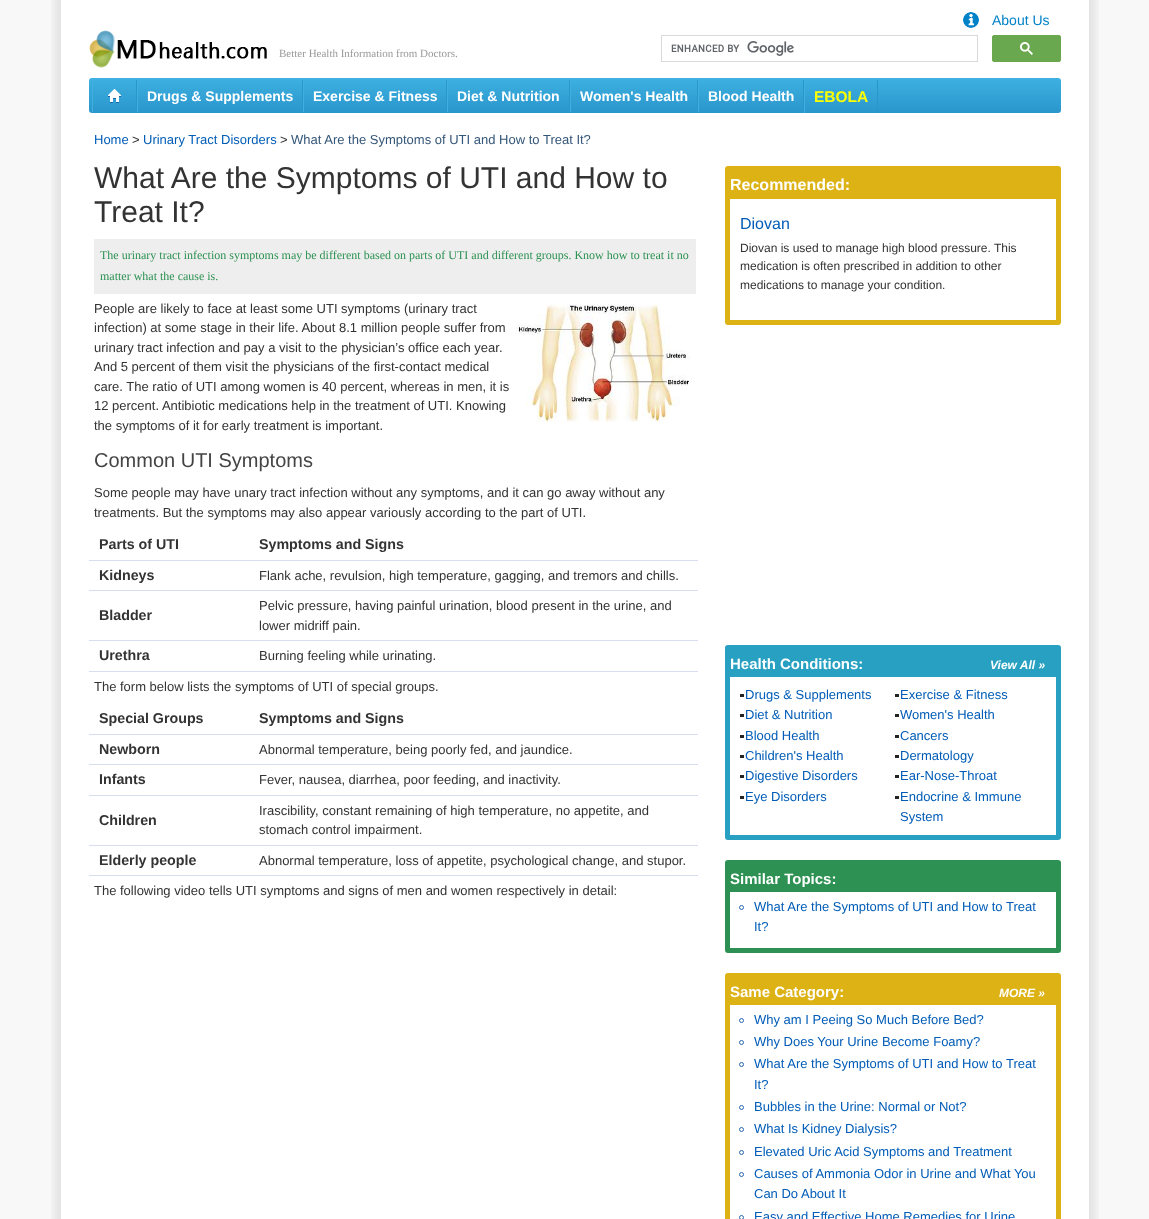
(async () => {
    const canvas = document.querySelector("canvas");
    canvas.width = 1149;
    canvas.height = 1219;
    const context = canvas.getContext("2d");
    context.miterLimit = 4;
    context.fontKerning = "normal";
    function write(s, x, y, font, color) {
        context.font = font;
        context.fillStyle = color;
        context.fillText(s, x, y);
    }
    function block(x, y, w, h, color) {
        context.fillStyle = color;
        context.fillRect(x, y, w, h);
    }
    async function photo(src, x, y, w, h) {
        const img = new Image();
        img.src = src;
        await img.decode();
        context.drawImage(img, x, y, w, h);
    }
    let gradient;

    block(0, 0, 1149, 1219, "rgb(248, 248, 248)");
    await photo("media/1.png", 51, 0, 1048, 1219);
    await photo("media/2.png", 963, 12, 16, 16);
    write("About Us", 992, 25, "14px Liberation Sans", "rgb(0, 130, 200)");
    await photo("media/3.png", 89, 30, 178, 38);
    write("Better Health Information from Doctors.", 279, 57, "11px Liberation Serif", "rgb(153, 153, 153)");
    context.strokeStyle = "rgb(217, 217, 217)";
    context.strokeRect(661.5, 35.5, 316, 26);
    await photo("media/4.png", 671, 41, 123, 15);
    context.fillStyle = "rgb(106, 168, 79)";
    context.beginPath();
    context.roundRect(992.5, 35.5, 68, 26, 1.5);
    context.fill();
    context.strokeStyle = "rgb(106, 168, 79)";
    context.stroke();
    await photo("media/5.png", 1020, 42, 13, 13);
    gradient = context.createLinearGradient(575, 78, 575, 113);
    gradient.addColorStop(0, "rgb(62, 176, 225)");
    gradient.addColorStop(1, "rgb(41, 150, 204)");
    context.fillStyle = gradient;
    context.beginPath();
    context.roundRect(89, 78, 972, 35, 3);
    context.fill();
    block(136, 80, 1, 32, "rgb(41, 150, 204)");
    block(92, 80, 1, 32, "rgb(62, 175, 223)");
    await photo("media/6.png", 108, 89, 13, 14);
    block(302, 80, 1, 32, "rgb(41, 150, 204)");
    block(137, 80, 1, 32, "rgb(62, 175, 223)");
    write("Drugs & Supplements", 147, 101, "bold 14px Liberation Sans", "rgb(255, 255, 255)");
    block(446, 80, 1, 32, "rgb(41, 150, 204)");
    block(303, 80, 1, 32, "rgb(62, 175, 223)");
    write("Exercise & Fitness", 313, 101, "bold 14px Liberation Sans", "rgb(255, 255, 255)");
    block(569, 80, 1, 32, "rgb(41, 150, 204)");
    block(447, 80, 1, 32, "rgb(62, 175, 223)");
    write("Diet & Nutrition", 457, 101, "bold 14px Liberation Sans", "rgb(255, 255, 255)");
    block(697, 80, 1, 32, "rgb(41, 150, 204)");
    block(570, 80, 1, 32, "rgb(62, 175, 223)");
    write("Women's Health", 580, 101, "bold 14px Liberation Sans", "rgb(255, 255, 255)");
    block(803, 80, 1, 32, "rgb(41, 150, 204)");
    block(698, 80, 1, 32, "rgb(62, 175, 223)");
    write("Blood Health", 708, 101, "bold 14px Liberation Sans", "rgb(255, 255, 255)");
    block(877, 80, 1, 33, "rgb(41, 150, 204)");
    block(804, 80, 1, 33, "rgb(62, 175, 223)");
    write("EBOLA", 814, 102, "bold 15.5px Liberation Sans", "rgb(255, 255, 0)");
    write("Home", 94, 144, "13px Liberation Sans", "rgb(0, 92, 183)");
    write(">", 132, 144, "13px Liberation Sans", "rgb(51, 51, 51)");
    write("Urinary Tract Disorders", 143, 144, "13px Liberation Sans", "rgb(0, 92, 183)");
    write(">", 280, 144, "13px Liberation Sans", "rgb(51, 51, 51)");
    write("What Are the Symptoms of UTI and How to Treat It?", 291, 144, "13px Liberation Sans", "rgb(52, 86, 120)");
    write("What Are the Symptoms of UTI and How to", 94, 188, "30px Liberation Sans", "rgb(51, 51, 51)");
    write("Treat It?", 94, 222, "30px Liberation Sans", "rgb(51, 51, 51)");
    block(94, 239, 602, 55, "rgb(238, 238, 238)");
    write("The urinary tract infection symptoms may be different based on parts of UTI and different groups. Know how to treat it no", 100, 259, "12px Liberation Serif", "rgb(44, 145, 82)");
    write("matter what the cause is.", 100, 280, "12px Liberation Serif", "rgb(44, 145, 82)");
    write("People are likely to face at least some UTI symptoms (urinary tract", 94, 313, "13px Liberation Sans", "rgb(51, 51, 51)");
    await photo("media/7.png", 516, 304, 174, 118);
    write("infection) at some stage in their life. About 8.1 million people suffer from", 94, 332, "13px Liberation Sans", "rgb(51, 51, 51)");
    write("urinary tract infection and pay a visit to the physician’s office each year.", 94, 352, "13px Liberation Sans", "rgb(51, 51, 51)");
    write("And 5 percent of them visit the physicians of the first-contact medical", 94, 371, "13px Liberation Sans", "rgb(51, 51, 51)");
    write("care. The ratio of UTI among women is 40 percent, whereas in men, it is", 94, 391, "13px Liberation Sans", "rgb(51, 51, 51)");
    write("12 percent. Antibiotic medications help in the treatment of UTI. Knowing", 94, 410, "13px Liberation Sans", "rgb(51, 51, 51)");
    write("the symptoms of it for early treatment is important.", 94, 430, "13px Liberation Sans", "rgb(51, 51, 51)");
    write("Common UTI Symptoms", 94, 467, "20px Liberation Sans", "rgb(68, 68, 68)");
    write("Some people may have unary tract infection without any symptoms, and it can go away without any", 94, 497, "13px Liberation Sans", "rgb(51, 51, 51)");
    write("treatments. But the symptoms may also appear variously according to the part of UTI.", 94, 517, "13px Liberation Sans", "rgb(51, 51, 51)");
    write("Parts of UTI", 99, 549, "bold 14.25px Liberation Sans", "rgb(51, 51, 51)");
    block(89, 560, 609, 1, "rgb(216, 221, 239)");
    write("Symptoms and Signs", 259, 549, "bold 14.25px Liberation Sans", "rgb(51, 51, 51)");
    write("Kidneys", 99, 580, "bold 14.25px Liberation Sans", "rgb(51, 51, 51)");
    block(89, 590, 609, 1, "rgb(216, 221, 239)");
    write("Flank ache, revulsion, high temperature, gagging, and tremors and chills.", 259, 580, "13px Liberation Sans", "rgb(51, 51, 51)");
    write("Bladder", 99, 620, "bold 14.25px Liberation Sans", "rgb(51, 51, 51)");
    block(89, 640, 609, 1, "rgb(216, 221, 239)");
    write("Pelvic pressure, having painful urination, blood present in the urine, and", 259, 610, "13px Liberation Sans", "rgb(51, 51, 51)");
    write("lower midriff pain.", 259, 630, "13px Liberation Sans", "rgb(51, 51, 51)");
    write("Urethra", 99, 660, "bold 14.25px Liberation Sans", "rgb(51, 51, 51)");
    block(89, 671, 609, 1, "rgb(216, 221, 239)");
    write("Burning feeling while urinating.", 259, 660, "13px Liberation Sans", "rgb(51, 51, 51)");
    write("The form below lists the symptoms of UTI of special groups.", 94, 691, "13px Liberation Sans", "rgb(51, 51, 51)");
    write("Special Groups", 99, 723, "bold 14.25px Liberation Sans", "rgb(51, 51, 51)");
    block(89, 734, 609, 1, "rgb(216, 221, 239)");
    write("Symptoms and Signs", 259, 723, "bold 14.25px Liberation Sans", "rgb(51, 51, 51)");
    write("Newborn", 99, 754, "bold 14.25px Liberation Sans", "rgb(51, 51, 51)");
    block(89, 764, 609, 1, "rgb(216, 221, 239)");
    write("Abnormal temperature, being poorly fed, and jaundice.", 259, 754, "13px Liberation Sans", "rgb(51, 51, 51)");
    write("Infants", 99, 784, "bold 14.25px Liberation Sans", "rgb(51, 51, 51)");
    block(89, 795, 609, 1, "rgb(216, 221, 239)");
    write("Fever, nausea, diarrhea, poor feeding, and inactivity.", 259, 784, "13px Liberation Sans", "rgb(51, 51, 51)");
    write("Children", 99, 825, "bold 14.25px Liberation Sans", "rgb(51, 51, 51)");
    block(89, 845, 609, 1, "rgb(216, 221, 239)");
    write("Irascibility, constant remaining of high temperature, no appetite, and", 259, 815, "13px Liberation Sans", "rgb(51, 51, 51)");
    write("stomach control impairment.", 259, 834, "13px Liberation Sans", "rgb(51, 51, 51)");
    write("Elderly people", 99, 865, "bold 14.25px Liberation Sans", "rgb(51, 51, 51)");
    block(89, 875, 609, 1, "rgb(216, 221, 239)");
    write("Abnormal temperature, loss of appetite, psychological change, and stupor.", 259, 865, "13px Liberation Sans", "rgb(51, 51, 51)");
    write("The following video tells UTI symptoms and signs of men and women respectively in detail:", 94, 895, "13px Liberation Sans", "rgb(51, 51, 51)");
    context.beginPath();
    context.roundRect(727.5, 168.5, 331, 154, 0.5);
    context.strokeStyle = "rgb(221, 178, 20)";
    context.lineWidth = 5;
    context.stroke();
    block(730, 171, 326, 28, "rgb(221, 178, 20)");
    write("Recommended:", 730, 190, "bold 16px Liberation Sans", "rgb(255, 255, 255)");
    write("Diovan", 740, 229, "16px Liberation Sans", "rgb(0, 92, 183)");
    write("Diovan is used to manage high blood pressure. This", 740, 252, "12px Liberation Sans", "rgb(51, 51, 51)");
    write("medication is often prescribed in addition to other", 740, 270, "12px Liberation Sans", "rgb(51, 51, 51)");
    write("medications to manage your condition.", 740, 289, "12px Liberation Sans", "rgb(51, 51, 51)");
    context.beginPath();
    context.roundRect(727.5, 647.5, 331, 190, 0.5);
    context.strokeStyle = "rgb(39, 160, 193)";
    context.stroke();
    block(730, 650, 326, 27, "rgb(39, 160, 193)");
    write("Health Conditions:", 730, 669, "bold 15px Liberation Sans", "rgb(255, 255, 255)");
    write("View All »", 990, 669, "italic bold 12px Liberation Sans", "rgb(255, 255, 255)");
    block(740, 694, 4, 3, "rgb(36, 36, 36)");
    write("Drugs & Supplements", 745, 699, "13px Liberation Sans", "rgb(0, 92, 183)");
    block(895, 694, 4, 3, "rgb(36, 36, 36)");
    write("Exercise & Fitness", 900, 699, "13px Liberation Sans", "rgb(0, 92, 183)");
    block(740, 714, 4, 3, "rgb(36, 36, 36)");
    write("Diet & Nutrition", 745, 719, "13px Liberation Sans", "rgb(0, 92, 183)");
    block(895, 714, 4, 3, "rgb(36, 36, 36)");
    write("Women's Health", 900, 719, "13px Liberation Sans", "rgb(0, 92, 183)");
    block(740, 735, 4, 3, "rgb(36, 36, 36)");
    write("Blood Health", 745, 740, "13px Liberation Sans", "rgb(0, 92, 183)");
    block(895, 735, 4, 3, "rgb(36, 36, 36)");
    write("Cancers", 900, 740, "13px Liberation Sans", "rgb(0, 92, 183)");
    block(740, 755, 4, 3, "rgb(36, 36, 36)");
    write("Children's Health", 745, 760, "13px Liberation Sans", "rgb(0, 92, 183)");
    block(895, 755, 4, 3, "rgb(36, 36, 36)");
    write("Dermatology", 900, 760, "13px Liberation Sans", "rgb(0, 92, 183)");
    block(740, 775, 4, 3, "rgb(36, 36, 36)");
    write("Digestive Disorders", 745, 780, "13px Liberation Sans", "rgb(0, 92, 183)");
    block(895, 775, 4, 3, "rgb(36, 36, 36)");
    write("Ear-Nose-Throat", 900, 780, "13px Liberation Sans", "rgb(0, 92, 183)");
    block(740, 796, 4, 3, "rgb(36, 36, 36)");
    write("Eye Disorders", 745, 801, "13px Liberation Sans", "rgb(0, 92, 183)");
    block(895, 796, 4, 3, "rgb(36, 36, 36)");
    write("Endocrine & Immune", 900, 801, "13px Liberation Sans", "rgb(0, 92, 183)");
    write("System", 900, 821, "13px Liberation Sans", "rgb(0, 92, 183)");
    context.beginPath();
    context.roundRect(727.5, 862.5, 331, 88, 0.5);
    context.strokeStyle = "rgb(44, 145, 82)";
    context.stroke();
    block(730, 865, 326, 27, "rgb(44, 145, 82)");
    write("Similar Topics:", 730, 884, "bold 15px Liberation Sans", "rgb(255, 255, 255)");
    context.beginPath();
    context.arc(741.5, 907.5, 2, 0, Math.PI * 2);
    context.strokeStyle = "rgb(38, 105, 178)";
    context.lineWidth = 1;
    context.stroke();
    write("What Are the Symptoms of UTI and How to Treat", 754, 911, "13px Liberation Sans", "rgb(0, 92, 183)");
    write("It?", 754, 931, "13px Liberation Sans", "rgb(0, 92, 183)");
    context.beginPath();
    context.roundRect(727.5, 975.5, 331, 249, 0.5);
    context.strokeStyle = "rgb(221, 178, 20)";
    context.lineWidth = 5;
    context.stroke();
    block(730, 978, 326, 27, "rgb(221, 178, 20)");
    write("Same Category:", 730, 997, "bold 15px Liberation Sans", "rgb(255, 255, 255)");
    write("MORE »", 999, 997, "italic bold 12px Liberation Sans", "rgb(255, 255, 255)");
    context.beginPath();
    context.arc(741.5, 1020.5, 2, 0, Math.PI * 2);
    context.strokeStyle = "rgb(38, 105, 178)";
    context.lineWidth = 1;
    context.stroke();
    write("Why am I Peeing So Much Before Bed?", 754, 1024, "13px Liberation Sans", "rgb(0, 92, 183)");
    context.beginPath();
    context.arc(741.5, 1042.5, 2, 0, Math.PI * 2);
    context.stroke();
    write("Why Does Your Urine Become Foamy?", 754, 1046, "13px Liberation Sans", "rgb(0, 92, 183)");
    context.beginPath();
    context.arc(741.5, 1064.5, 2, 0, Math.PI * 2);
    context.stroke();
    write("What Are the Symptoms of UTI and How to Treat", 754, 1068, "13px Liberation Sans", "rgb(0, 92, 183)");
    write("It?", 754, 1089, "13px Liberation Sans", "rgb(0, 92, 183)");
    context.beginPath();
    context.arc(741.5, 1107.5, 2, 0, Math.PI * 2);
    context.stroke();
    write("Bubbles in the Urine: Normal or Not?", 754, 1111, "13px Liberation Sans", "rgb(0, 92, 183)");
    context.beginPath();
    context.arc(741.5, 1129.5, 2, 0, Math.PI * 2);
    context.stroke();
    write("What Is Kidney Dialysis?", 754, 1133, "13px Liberation Sans", "rgb(0, 92, 183)");
    context.beginPath();
    context.arc(741.5, 1152.5, 2, 0, Math.PI * 2);
    context.stroke();
    write("Elevated Uric Acid Symptoms and Treatment", 754, 1156, "13px Liberation Sans", "rgb(0, 92, 183)");
    context.beginPath();
    context.arc(741.5, 1174.5, 2, 0, Math.PI * 2);
    context.stroke();
    write("Causes of Ammonia Odor in Urine and What You", 754, 1178, "13px Liberation Sans", "rgb(0, 92, 183)");
    write("Can Do About It", 754, 1198, "13px Liberation Sans", "rgb(0, 92, 183)");
    context.beginPath();
    context.arc(741.5, 1217.5, 2, 0, Math.PI * 2);
    context.stroke();
    write("Easy and Effective Home Remedies for Urine", 754, 1221, "13px Liberation Sans", "rgb(0, 92, 183)");
})();
